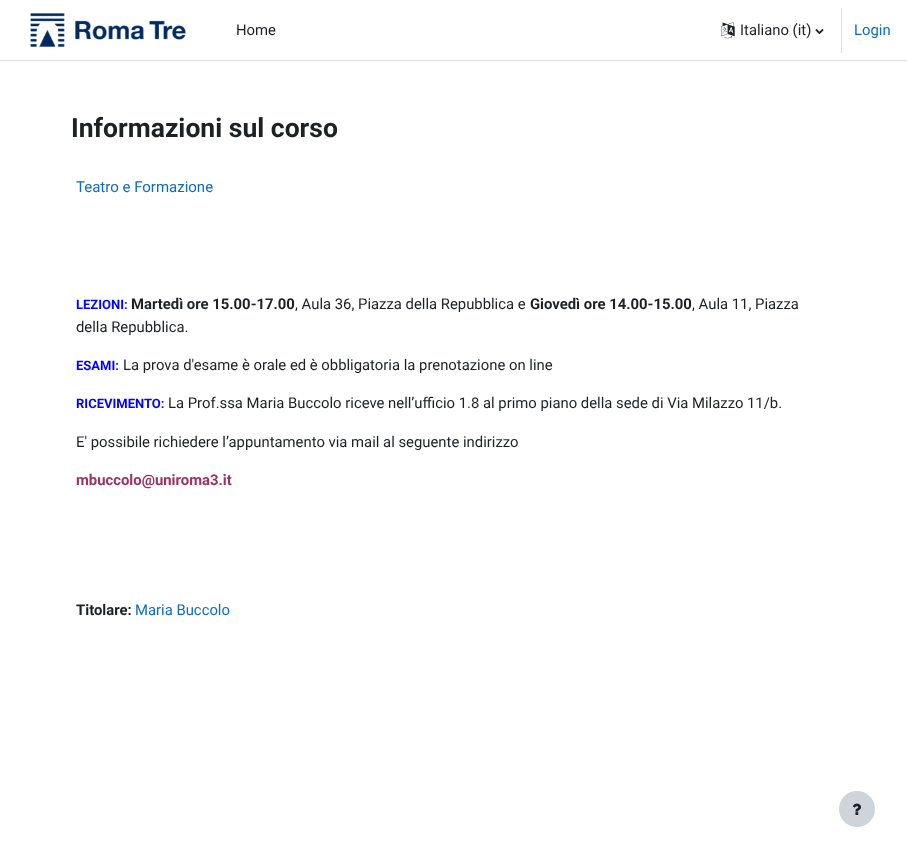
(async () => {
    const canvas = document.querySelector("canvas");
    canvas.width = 907;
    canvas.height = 859;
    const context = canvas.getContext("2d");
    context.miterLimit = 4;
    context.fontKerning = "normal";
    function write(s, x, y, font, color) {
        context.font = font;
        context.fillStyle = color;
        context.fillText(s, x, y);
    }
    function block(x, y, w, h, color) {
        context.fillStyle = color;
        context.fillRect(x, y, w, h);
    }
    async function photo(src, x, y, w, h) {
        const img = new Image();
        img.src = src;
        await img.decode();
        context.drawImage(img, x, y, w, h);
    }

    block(0, 0, 907, 859, "rgb(255, 255, 255)");
    block(0, 60, 907, 1, "rgb(222, 226, 230)");
    await photo("media/1.png", 30, 13, 156, 34);
    write("Home", 236, 35, "14.85px Roboto", "rgb(29, 33, 37)");
    await photo("media/2.png", 721, 22, 14, 17);
    write("Italiano (it)", 740, 35, "14.85px Roboto", "rgb(29, 33, 37)");
    await photo("media/3.png", 815, 29, 9, 6);
    block(841, 8, 1, 45, "rgb(222, 226, 230)");
    write("Login", 854, 35, "14.85px Roboto", "rgb(15, 108, 191)");
    write("Informazioni sul corso", 71, 137, "bold 26.5px Roboto", "rgb(29, 33, 37)");
    write("Teatro e Formazione", 76, 192, "15px Roboto", "rgb(15, 108, 191)");
    write("LEZIONI:", 76, 309, "bold 13px Roboto", "rgb(0, 0, 255)");
    write("Martedì ore 15.00-17.00", 131, 309, "bold 14.85px Roboto", "rgb(29, 33, 37)");
    write(", Aula 36, Piazza della Repubblica e", 295, 309, "14.85px Roboto", "rgb(29, 33, 37)");
    write("Giovedì ore 14.00-15.00", 530, 309, "bold 14.85px Roboto", "rgb(29, 33, 37)");
    write(", Aula 11, Piazza", 692, 309, "14.85px Roboto", "rgb(29, 33, 37)");
    write("della Repubblica.", 76, 332, "14.85px Roboto", "rgb(29, 33, 37)");
    write("ESAMI:", 76, 370, "bold 13px Roboto", "rgb(0, 0, 255)");
    write("La prova d'esame è orale ed è obbligatoria la prenotazione on line", 123, 370, "14.85px Roboto", "rgb(29, 33, 37)");
    write("RICEVIMENTO:", 76, 408, "bold 13px Roboto", "rgb(0, 0, 255)");
    write("La Prof.ssa Maria Buccolo riceve nell’ufficio 1.8 al primo piano della sede di Via Milazzo 11/b.", 168, 408, "14.85px Roboto", "rgb(29, 33, 37)");
    write("E' possibile richiedere l’appuntamento via mail al seguente indirizzo", 76, 447, "14.85px Roboto", "rgb(29, 33, 37)");
    write("mbuccolo@uniroma3.it", 76, 485, "bold 14.85px Roboto", "rgb(153, 51, 102)");
    write("Titolare:", 76, 615, "bold 14.85px Roboto", "rgb(29, 33, 37)");
    write("Maria Buccolo", 135, 615, "14.85px Roboto", "rgb(15, 108, 191)");
    context.fillStyle = "rgb(206, 212, 218)";
    context.beginPath();
    context.arc(857, 809, 18, 0, Math.PI * 2);
    context.fill();
    await photo("media/4.png", 852, 803, 10, 12);
})();
